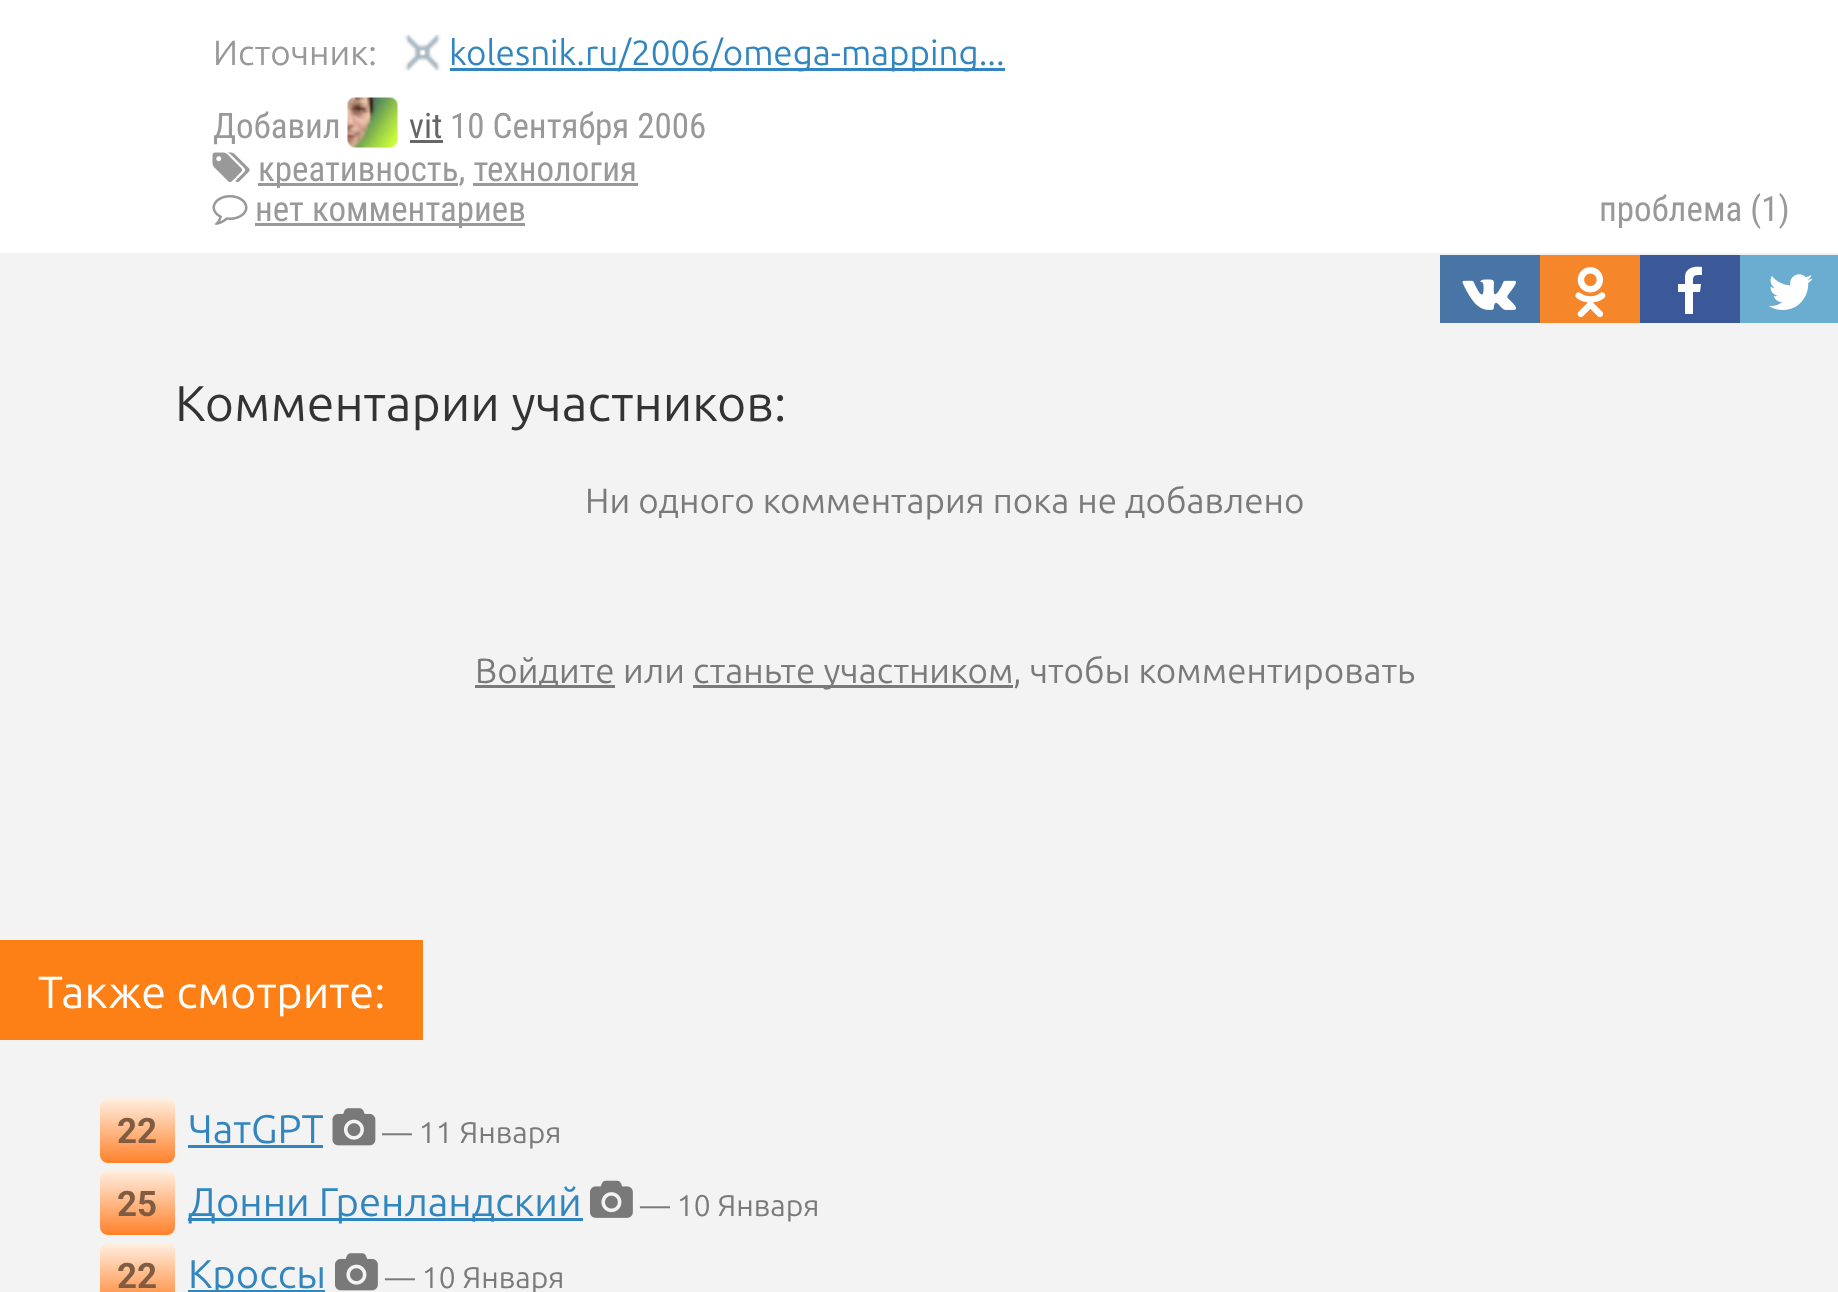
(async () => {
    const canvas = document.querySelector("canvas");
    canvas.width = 1838;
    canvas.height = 1292;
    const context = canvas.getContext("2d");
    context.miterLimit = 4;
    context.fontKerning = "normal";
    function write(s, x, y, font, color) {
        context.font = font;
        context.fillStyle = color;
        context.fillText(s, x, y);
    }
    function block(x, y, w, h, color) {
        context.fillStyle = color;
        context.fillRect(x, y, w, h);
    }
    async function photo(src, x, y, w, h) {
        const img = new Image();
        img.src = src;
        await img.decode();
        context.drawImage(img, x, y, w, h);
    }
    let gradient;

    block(0, 0, 1838, 1292, "rgb(243, 243, 243)");
    block(0, 0, 1838, 253, "rgb(255, 255, 255)");
    write("Источник:", 213, 65, "35px Ubuntu", "rgb(153, 153, 153)");
    await photo("media/1.png", 404, 34, 37, 37);
    block(450, 68, 555, 3, "rgb(50, 134, 191)");
    write("kolesnik.ru/2006/omega-mapping...", 449, 65, "35px Ubuntu", "rgb(50, 134, 191)");
    write("Добавил", 213, 138, "35px Roboto Condensed", "rgb(153, 153, 153)");
    await photo("media/2.png", 347, 97, 51, 51);
    write("vit", 409, 138, "35px Roboto Condensed", "rgb(102, 102, 102)");
    block(410, 140, 33, 3, "rgb(102, 102, 102)");
    write("10 Сентября 2006", 450, 138, "35px Roboto Condensed", "rgb(153, 153, 153)");
    await photo("media/3.png", 212, 152, 38, 31);
    block(258, 183, 200, 3, "rgb(153, 153, 153)");
    write("креативность, технология", 258, 181, "35px Roboto Condensed", "rgb(153, 153, 153)");
    block(473, 183, 165, 3, "rgb(153, 153, 153)");
    await photo("media/4.png", 212, 195, 36, 30);
    block(255, 223, 270, 3, "rgb(153, 153, 153)");
    write("нет комментариев", 255, 221, "35px Roboto Condensed", "rgb(153, 153, 153)");
    write("проблема (1)", 1599, 221, "35px Roboto Condensed", "rgb(153, 153, 153)");
    block(1440, 255, 100, 68, "rgb(72, 116, 166)");
    await photo("media/5.png", 1462, 279, 54, 31);
    block(1540, 255, 100, 68, "rgb(245, 134, 41)");
    await photo("media/6.png", 1575, 267, 31, 51);
    block(1640, 255, 100, 68, "rgb(59, 89, 152)");
    context.fillStyle = "rgb(255, 255, 255)";
    context.beginPath();
    context.moveTo(1702, 267);
    context.lineTo(1702, 275);
    context.bezierCurveTo(1693, 275, 1693, 275, 1693, 284);
    context.lineTo(1701, 284);
    context.lineTo(1700, 292);
    context.lineTo(1693, 292);
    context.lineTo(1693, 314);
    context.lineTo(1685, 314);
    context.lineTo(1685, 292);
    context.lineTo(1678, 292);
    context.lineTo(1678, 284);
    context.lineTo(1685, 284);
    context.lineTo(1685, 276);
    context.bezierCurveTo(1686, 267, 1695, 266, 1702, 267);
    context.closePath();
    context.fill();
    block(1740, 255, 98, 68, "rgb(106, 173, 209)");
    await photo("media/7.png", 1769, 274, 44, 36);
    write("Комментарии участников:", 175, 421, "50px Ubuntu", "rgb(51, 51, 51)");
    write("Ни одного комментария пока не добавлено", 585, 513, "35px Ubuntu", "rgb(122, 122, 122)");
    block(475, 685, 140, 3, "rgb(122, 122, 122)");
    write("Войдите", 475, 683, "35px Ubuntu", "rgb(122, 122, 122)");
    write("или", 623, 683, "35px Ubuntu", "rgb(122, 122, 122)");
    block(693, 685, 320, 3, "rgb(122, 122, 122)");
    write("станьте участником", 693, 683, "35px Ubuntu", "rgb(122, 122, 122)");
    write(", чтобы комментировать", 1013, 683, "35px Ubuntu", "rgb(122, 122, 122)");
    block(0, 940, 423, 100, "rgb(252, 128, 22)");
    write("Также смотрите:", 38, 1008, "45px Ubuntu", "rgb(255, 255, 255)");
    gradient = context.createLinearGradient(138, 1098, 138, 1163);
    gradient.addColorStop(0, "rgb(255, 240, 226)");
    gradient.addColorStop(1, "rgb(255, 129, 42)");
    context.fillStyle = gradient;
    context.beginPath();
    context.roundRect(100, 1098, 75, 65, 8);
    context.fill();
    write("22", 117, 1143, "bold 35px Roboto", "rgb(128, 92, 67)");
    write("ЧатGPT", 188, 1143, "40px Ubuntu", "rgb(50, 134, 191)");
    block(188, 1145, 135, 3, "rgb(50, 134, 191)");
    await photo("media/8.png", 332, 1108, 44, 38);
    write("— 11 Января", 382, 1143, "30px Ubuntu", "rgb(122, 122, 122)");
    gradient = context.createLinearGradient(138, 1170, 138, 1235);
    gradient.addColorStop(0, "rgb(255, 240, 226)");
    gradient.addColorStop(1, "rgb(255, 129, 42)");
    context.fillStyle = gradient;
    context.beginPath();
    context.roundRect(100, 1170, 75, 65, 8);
    context.fill();
    write("25", 117, 1216, "bold 35px Roboto", "rgb(128, 92, 67)");
    block(188, 1218, 395, 3, "rgb(50, 134, 191)");
    write("Донни Гренландский", 188, 1216, "40px Ubuntu", "rgb(50, 134, 191)");
    await photo("media/9.png", 590, 1180, 43, 38);
    write("— 10 Января", 640, 1216, "30px Ubuntu", "rgb(122, 122, 122)");
    gradient = context.createLinearGradient(138, 1243, 138, 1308);
    gradient.addColorStop(0, "rgb(255, 240, 226)");
    gradient.addColorStop(1, "rgb(255, 129, 42)");
    context.fillStyle = gradient;
    context.beginPath();
    context.roundRect(100, 1243, 75, 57, 8);
    context.fill();
    write("22", 117, 1288, "bold 35px Roboto", "rgb(128, 92, 67)");
    block(188, 1290, 137, 2, "rgb(50, 134, 191)");
    write("Кроссы", 188, 1288, "40px Ubuntu", "rgb(50, 134, 191)");
    await photo("media/10.png", 335, 1253, 43, 38);
    write("— 10 Января", 385, 1288, "30px Ubuntu", "rgb(122, 122, 122)");
})();
